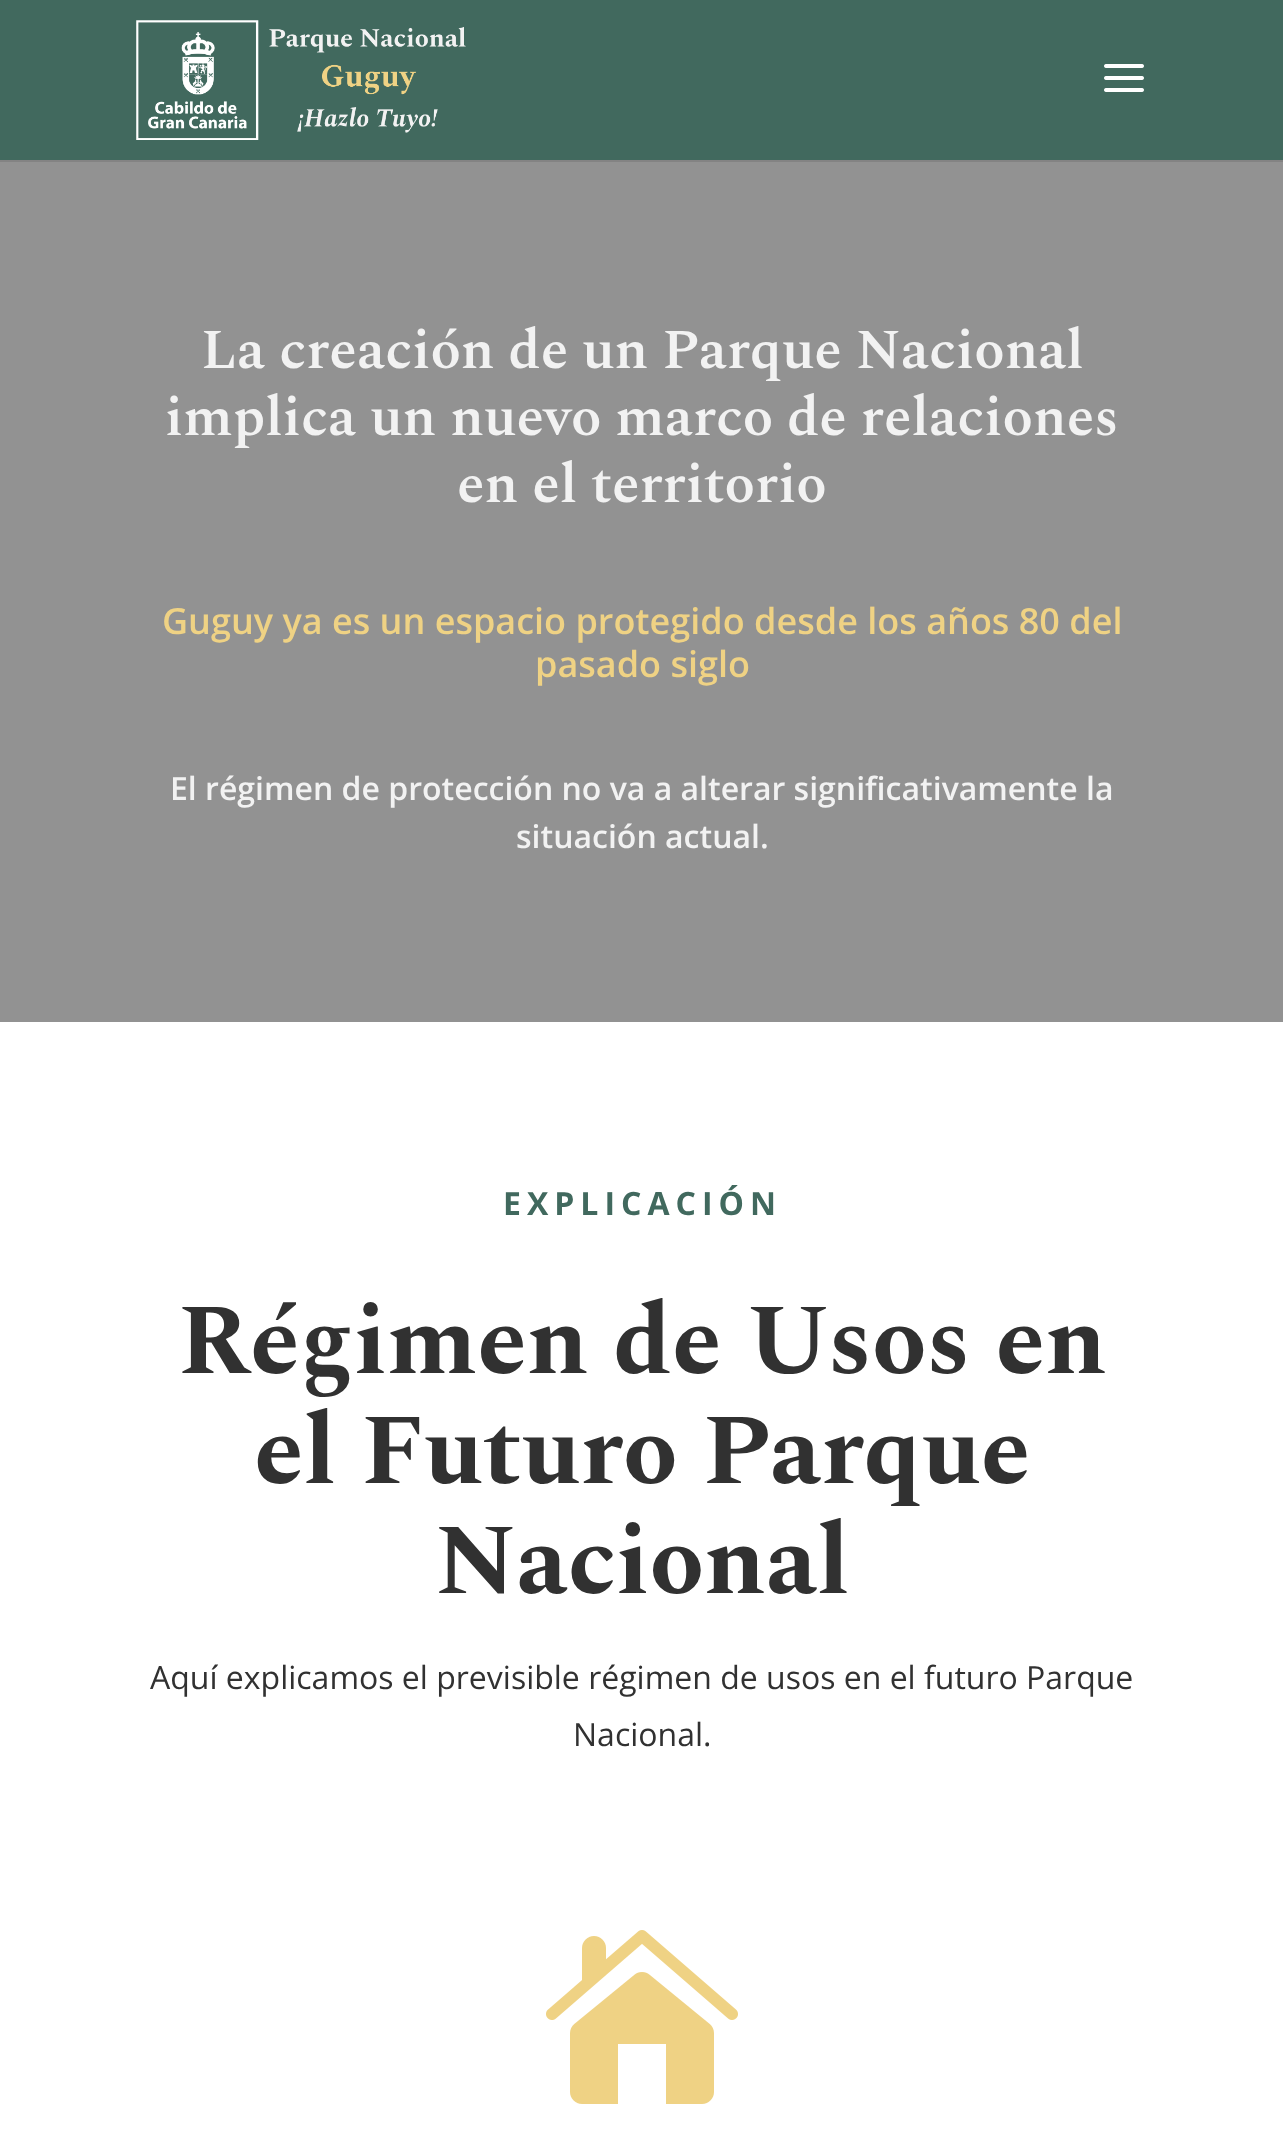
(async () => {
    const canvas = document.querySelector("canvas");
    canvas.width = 1283;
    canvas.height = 2154;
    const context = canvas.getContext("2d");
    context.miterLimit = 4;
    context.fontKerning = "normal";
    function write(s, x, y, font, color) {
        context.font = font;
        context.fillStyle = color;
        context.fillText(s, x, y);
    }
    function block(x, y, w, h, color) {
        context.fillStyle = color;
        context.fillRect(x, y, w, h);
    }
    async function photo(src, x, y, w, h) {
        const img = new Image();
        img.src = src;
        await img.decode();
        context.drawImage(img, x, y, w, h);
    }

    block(0, 0, 1283, 2154, "rgb(255, 255, 255)");
    block(0, 160, 1283, 2, "rgb(131, 131, 131)");
    block(0, 0, 1283, 160, "rgb(65, 105, 94)");
    await photo("media/1.png", 136, 20, 330, 120);
    await photo("media/2.png", 1104, 64, 40, 28);
    block(0, 162, 1283, 860, "rgb(146, 146, 146)");
    write("La creación de un Parque Nacional", 201, 368, "600 56px Spectral", "rgb(242, 242, 242)");
    write("implica un nuevo marco de relaciones", 165, 435, "600 56px Spectral", "rgb(242, 242, 242)");
    write("en el territorio", 457, 502, "600 56px Spectral", "rgb(242, 242, 242)");
    write("Guguy ya es un espacio protegido desde los años 80 del", 162, 634, "600 36px Open Sans", "rgb(239, 210, 132)");
    write("pasado siglo", 535, 677, "600 36px Open Sans", "rgb(239, 210, 132)");
    write("El régimen de protección no va a alterar significativamente la", 170, 800, "600 32px Open Sans", "rgb(242, 242, 242)");
    write("situación actual.", 516, 848, "600 32px Open Sans", "rgb(242, 242, 242)");
    context.letterSpacing = "6px";
    write("EXPLICACIÓN", 503, 1215, "bold 32px Open Sans", "rgb(65, 105, 94)");
    context.letterSpacing = "0px";
    write("Régimen de Usos en", 178, 1373, "bold 100px Spectral", "rgb(49, 49, 49)");
    write("el Futuro Parque", 254, 1483, "bold 100px Spectral", "rgb(49, 49, 49)");
    write("Nacional", 435, 1593, "bold 100px Spectral", "rgb(49, 49, 49)");
    write("Aquí explicamos el previsible régimen de usos en el futuro Parque", 150, 1689, "32px Open Sans", "rgb(49, 49, 49)");
    write("Nacional.", 573, 1746, "32px Open Sans", "rgb(49, 49, 49)");
    await photo("media/3.png", 546, 1930, 192, 174);
})();
